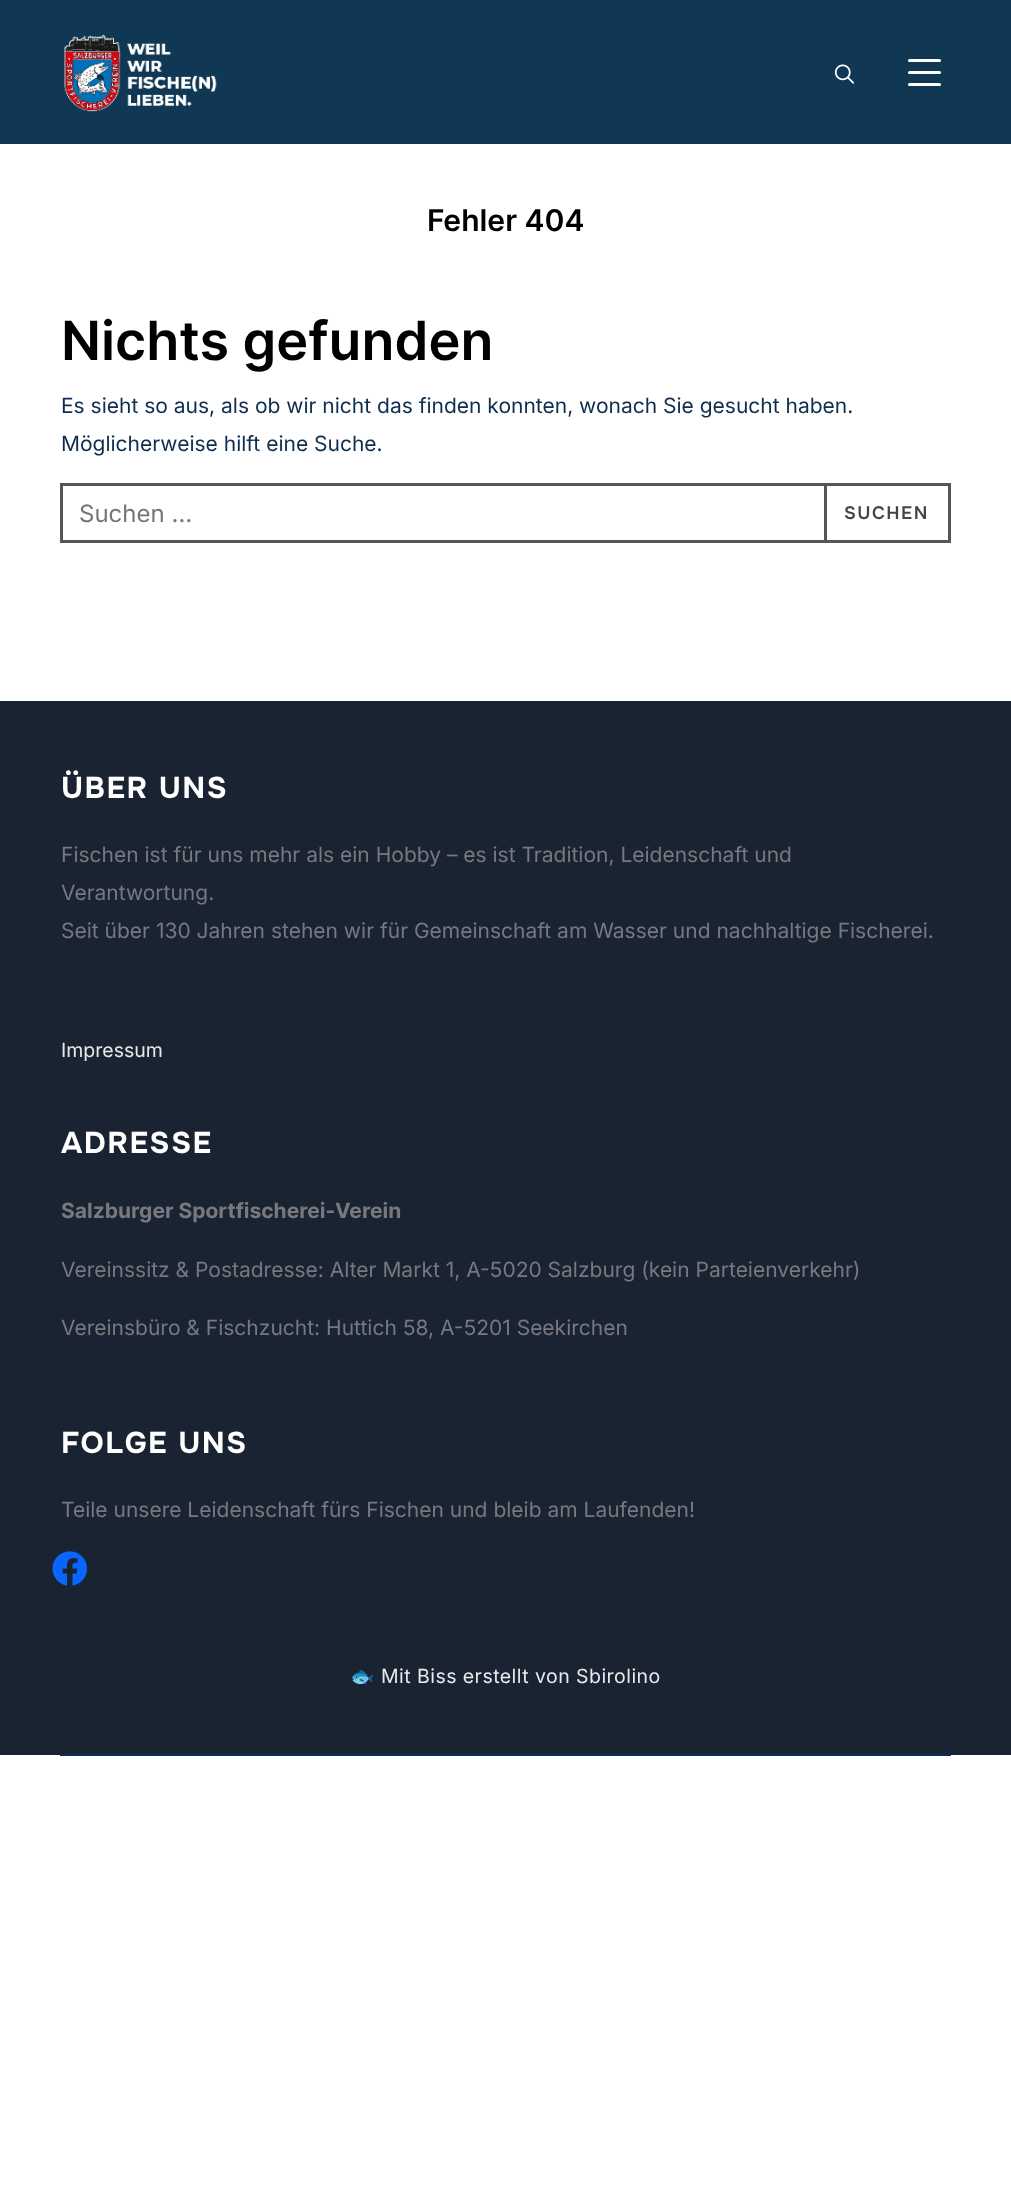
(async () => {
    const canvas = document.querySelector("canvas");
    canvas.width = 1011;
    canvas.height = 2194;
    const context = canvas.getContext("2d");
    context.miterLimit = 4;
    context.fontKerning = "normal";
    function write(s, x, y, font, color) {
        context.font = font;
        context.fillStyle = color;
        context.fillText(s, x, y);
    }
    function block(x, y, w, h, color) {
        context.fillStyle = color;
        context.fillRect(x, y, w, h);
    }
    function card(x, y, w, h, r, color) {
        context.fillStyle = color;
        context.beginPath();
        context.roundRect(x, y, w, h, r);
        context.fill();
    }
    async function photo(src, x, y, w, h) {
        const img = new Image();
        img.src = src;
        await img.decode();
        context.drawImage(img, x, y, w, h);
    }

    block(0, 0, 1011, 2194, "rgb(255, 255, 255)");
    block(0, 0, 1011, 144, "rgb(16, 56, 84)");
    await photo("media/1.png", 64, 34, 153, 78);
    await photo("media/2.png", 834, 64, 21, 20);
    card(908, 59, 33, 3, 1.5, "rgb(255, 255, 255)");
    card(908, 71, 33, 3, 1.5, "rgb(255, 255, 255)");
    card(908, 83, 33, 3, 1.5, "rgb(255, 255, 255)");
    write("Fehler 404", 427, 231, "600 30px Inter", "rgb(0, 0, 0)");
    write("Nichts gefunden", 61, 360, "600 54px Inter", "rgb(0, 0, 0)");
    write("Es sieht so aus, als ob wir nicht das finden konnten, wonach Sie gesucht haben.", 61, 413, "21px Inter", "rgb(15, 46, 79)");
    write("Möglicherweise hilft eine Suche.", 61, 451, "21px Inter", "rgb(15, 46, 79)");
    context.strokeStyle = "rgb(86, 85, 85)";
    context.lineWidth = 3;
    context.strokeRect(61.5, 484.5, 888, 57);
    write("Suchen …", 79, 522, "24px Inter", "rgb(117, 117, 117)");
    context.strokeRect(825.5, 484.5, 124, 57);
    context.letterSpacing = "1.5px";
    write("SUCHEN", 844, 519, "600 18px Onest", "rgb(68, 68, 68)");
    block(0, 701, 1011, 1054, "rgb(26, 35, 50)");
    write("ÜBER UNS", 61, 798, "bold 30px Onest", "rgb(255, 255, 255)");
    context.letterSpacing = "0px";
    write("Fischen ist für uns mehr als ein Hobby – es ist Tradition, Leidenschaft und", 61, 862, "21px Inter", "rgb(120, 120, 127)");
    write("Verantwortung.", 61, 900, "21px Inter", "rgb(120, 120, 127)");
    write("Seit über 130 Jahren stehen wir für Gemeinschaft am Wasser und nachhaltige Fischerei.", 61, 938, "21px Inter", "rgb(120, 120, 127)");
    write("Impressum", 61, 1057, "19.5px Inter", "rgb(232, 233, 235)");
    context.letterSpacing = "1.5px";
    write("ADRESSE", 61, 1153, "bold 30px Onest", "rgb(255, 255, 255)");
    context.letterSpacing = "0px";
    write("Salzburger Sportfischerei-Verein", 61, 1218, "bold 21px Inter", "rgb(120, 120, 127)");
    write("Vereinssitz & Postadresse: Alter Markt 1, A-5020 Salzburg (kein Parteienverkehr)", 61, 1277, "21px Inter", "rgb(120, 120, 127)");
    write("Vereinsbüro & Fischzucht: Huttich 58, A-5201 Seekirchen", 61, 1335, "21px Inter", "rgb(120, 120, 127)");
    context.letterSpacing = "1.5px";
    write("FOLGE UNS", 61, 1453, "bold 30px Onest", "rgb(255, 255, 255)");
    context.letterSpacing = "0px";
    write("Teile unsere Leidenschaft fürs Fischen und bleib am Laufenden!", 61, 1517, "21px Inter", "rgb(120, 120, 127)");
    await photo("media/3.png", 52, 1551, 35, 35);
    context.letterSpacing = "0.45px";
    write("🐟", 350, 1683, "19.5px Noto Color Emoji", "rgb(232, 233, 235)");
    write("Mit Biss erstellt von Sbirolino", 381, 1683, "19.5px Inter", "rgb(232, 233, 235)");
    block(60, 1754, 891, 2, "rgb(17, 40, 93)");
})();
